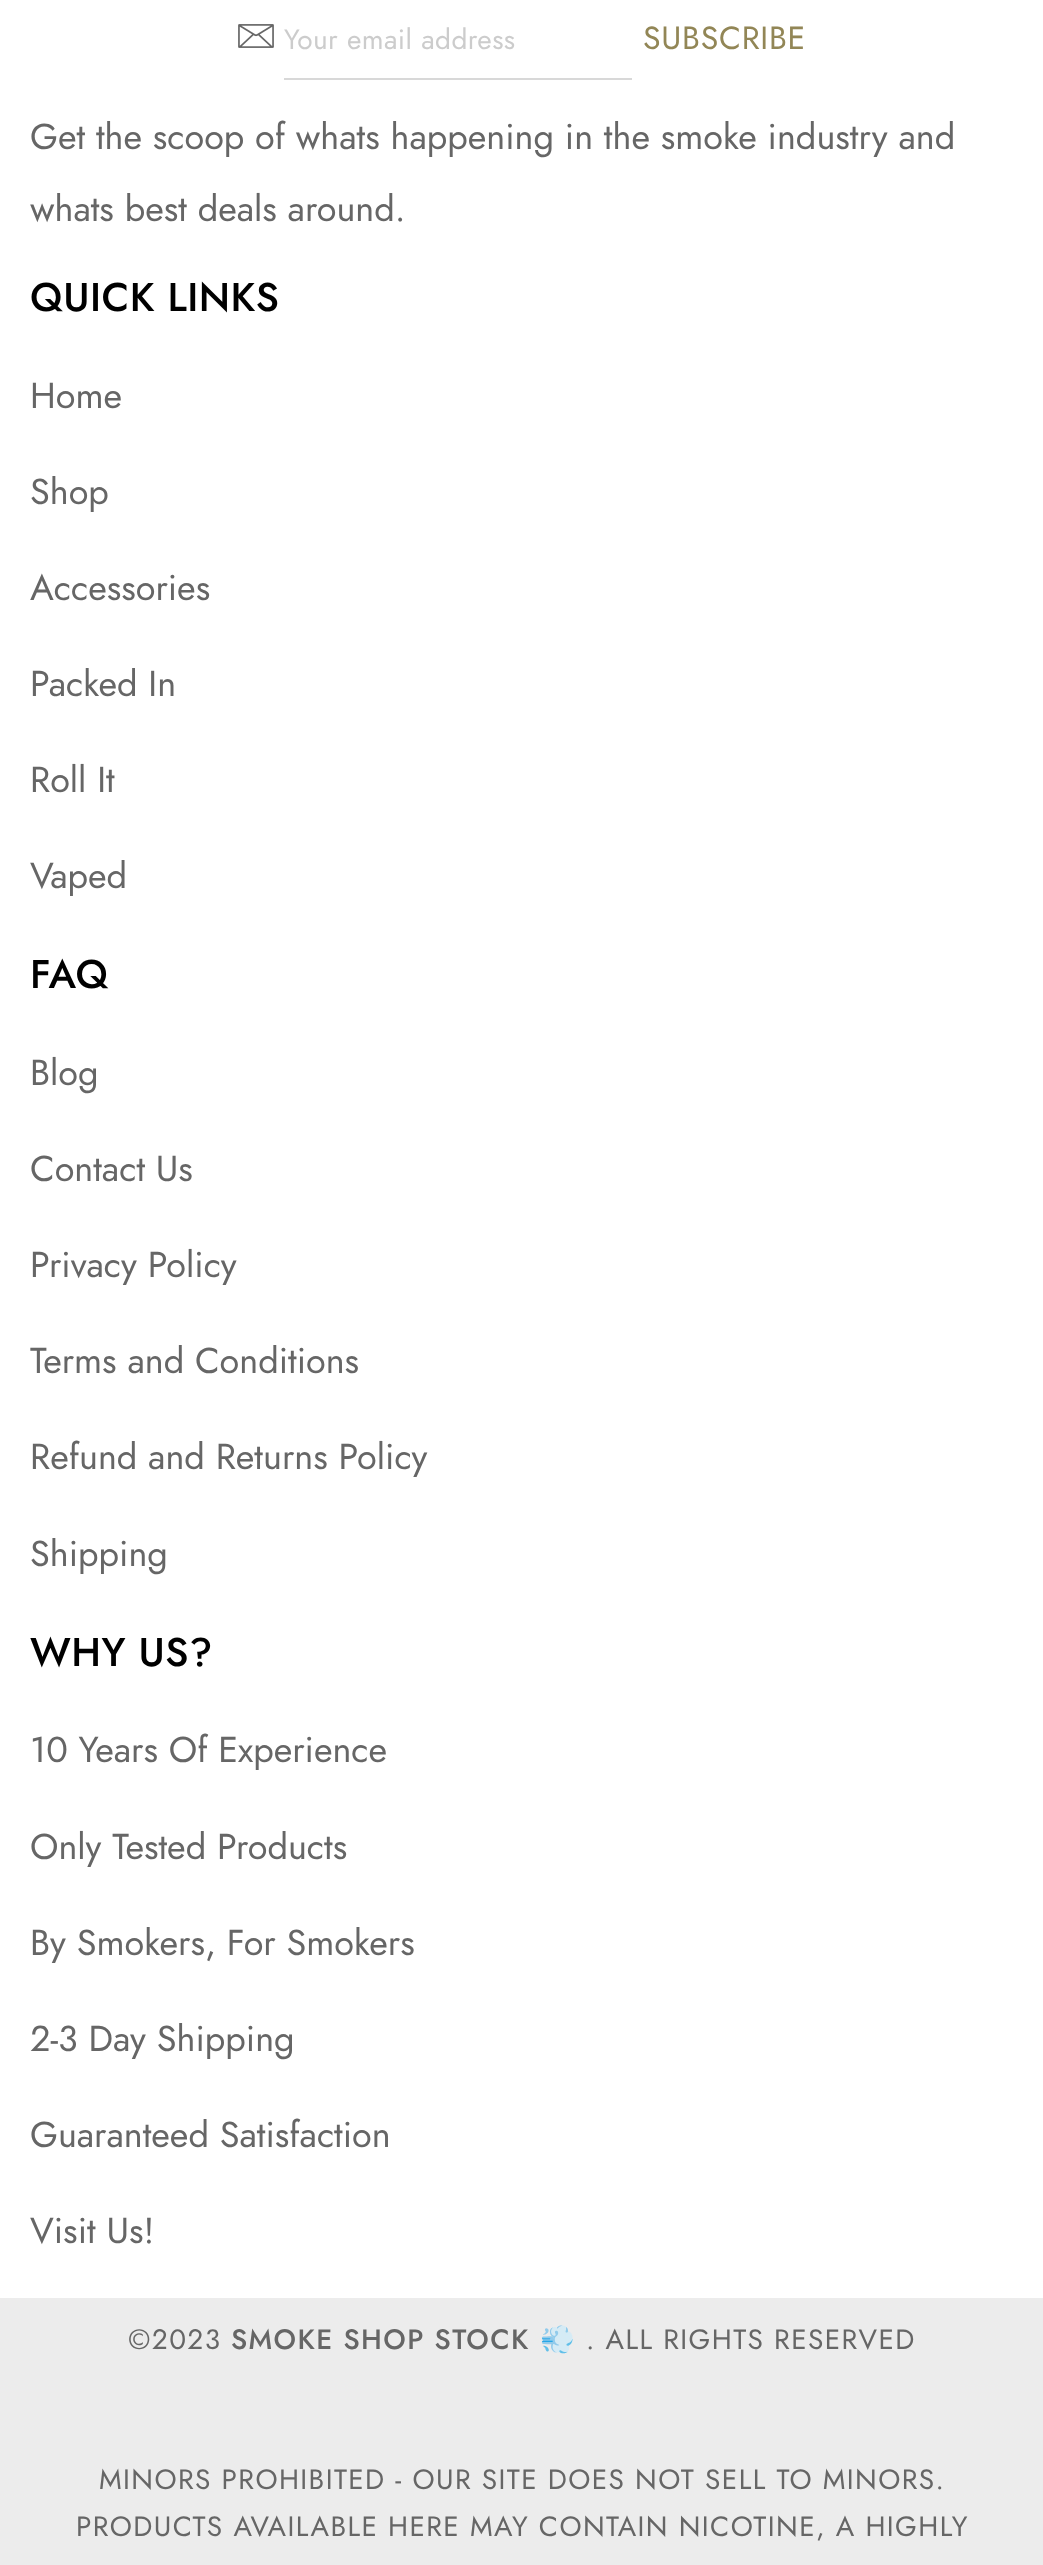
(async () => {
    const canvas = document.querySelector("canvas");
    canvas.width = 1043;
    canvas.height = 2565;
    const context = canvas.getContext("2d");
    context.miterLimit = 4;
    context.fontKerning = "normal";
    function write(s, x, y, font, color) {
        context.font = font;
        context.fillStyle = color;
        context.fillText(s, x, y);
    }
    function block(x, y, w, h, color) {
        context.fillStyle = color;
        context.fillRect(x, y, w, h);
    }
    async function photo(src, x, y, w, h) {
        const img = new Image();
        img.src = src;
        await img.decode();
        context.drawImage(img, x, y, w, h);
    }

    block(0, 0, 1043, 2565, "rgb(255, 255, 255)");
    await photo("media/1.png", 238, 24, 36, 24);
    block(284, 78, 348, 2, "rgb(216, 216, 216)");
    context.letterSpacing = "0.4px";
    write("Your email address", 284, 49, "28px Jost", "rgb(204, 204, 204)");
    context.letterSpacing = "0.75px";
    write("SUBSCRIBE", 643, 49, "32px Jost", "rgb(146, 134, 86)");
    context.letterSpacing = "0px";
    write("Get the scoop of whats happening in the smoke industry and", 30, 149, "36px Jost", "rgb(102, 102, 102)");
    write("whats best deals around.", 30, 221, "36px Jost", "rgb(102, 102, 102)");
    context.letterSpacing = "0.5px";
    write("QUICK LINKS", 30, 311, "500 40px Jost", "rgb(0, 0, 0)");
    context.letterSpacing = "0px";
    write("Home", 30, 408, "36px Jost", "rgb(102, 102, 102)");
    write("Shop", 30, 504, "36px Jost", "rgb(102, 102, 102)");
    write("Accessories", 30, 600, "36px Jost", "rgb(102, 102, 102)");
    write("Packed In", 30, 696, "36px Jost", "rgb(102, 102, 102)");
    write("Roll It", 30, 792, "36px Jost", "rgb(102, 102, 102)");
    write("Vaped", 30, 888, "36px Jost", "rgb(102, 102, 102)");
    context.letterSpacing = "0.5px";
    write("FAQ", 30, 988, "500 40px Jost", "rgb(0, 0, 0)");
    context.letterSpacing = "0px";
    write("Blog", 30, 1085, "36px Jost", "rgb(102, 102, 102)");
    write("Contact Us", 30, 1181, "36px Jost", "rgb(102, 102, 102)");
    write("Privacy Policy", 30, 1277, "36px Jost", "rgb(102, 102, 102)");
    write("Terms and Conditions", 30, 1373, "36px Jost", "rgb(102, 102, 102)");
    write("Refund and Returns Policy", 30, 1469, "36px Jost", "rgb(102, 102, 102)");
    write("Shipping", 30, 1566, "36px Jost", "rgb(102, 102, 102)");
    context.letterSpacing = "0.5px";
    write("WHY US?", 30, 1666, "500 40px Jost", "rgb(0, 0, 0)");
    context.letterSpacing = "0px";
    write("10 Years Of Experience", 30, 1762, "36px Jost", "rgb(102, 102, 102)");
    write("Only Tested Products", 30, 1859, "36px Jost", "rgb(102, 102, 102)");
    write("By Smokers, For Smokers", 30, 1955, "36px Jost", "rgb(102, 102, 102)");
    write("2-3 Day Shipping", 30, 2051, "36px Jost", "rgb(102, 102, 102)");
    write("Guaranteed Satisfaction", 30, 2147, "36px Jost", "rgb(102, 102, 102)");
    write("Visit Us!", 30, 2243, "36px Jost", "rgb(102, 102, 102)");
    block(0, 2298, 1043, 267, "rgb(236, 236, 236)");
    context.letterSpacing = "1.4px";
    write("©2023", 128, 2349, "28px Jost", "rgb(102, 102, 102)");
    write("SMOKE SHOP STOCK", 231, 2349, "500 28px Jost", "rgb(102, 102, 102)");
    write("💨", 540, 2349, "28px Noto Color Emoji", "rgb(0, 0, 0)");
    write(". ALL RIGHTS RESERVED", 586, 2349, "28px Jost", "rgb(102, 102, 102)");
    write("MINORS PROHIBITED - OUR SITE DOES NOT SELL TO MINORS.", 99, 2489, "28px Jost", "rgb(102, 102, 102)");
    write("PRODUCTS AVAILABLE HERE MAY CONTAIN NICOTINE, A HIGHLY", 76, 2536, "28px Jost", "rgb(102, 102, 102)");
})();
